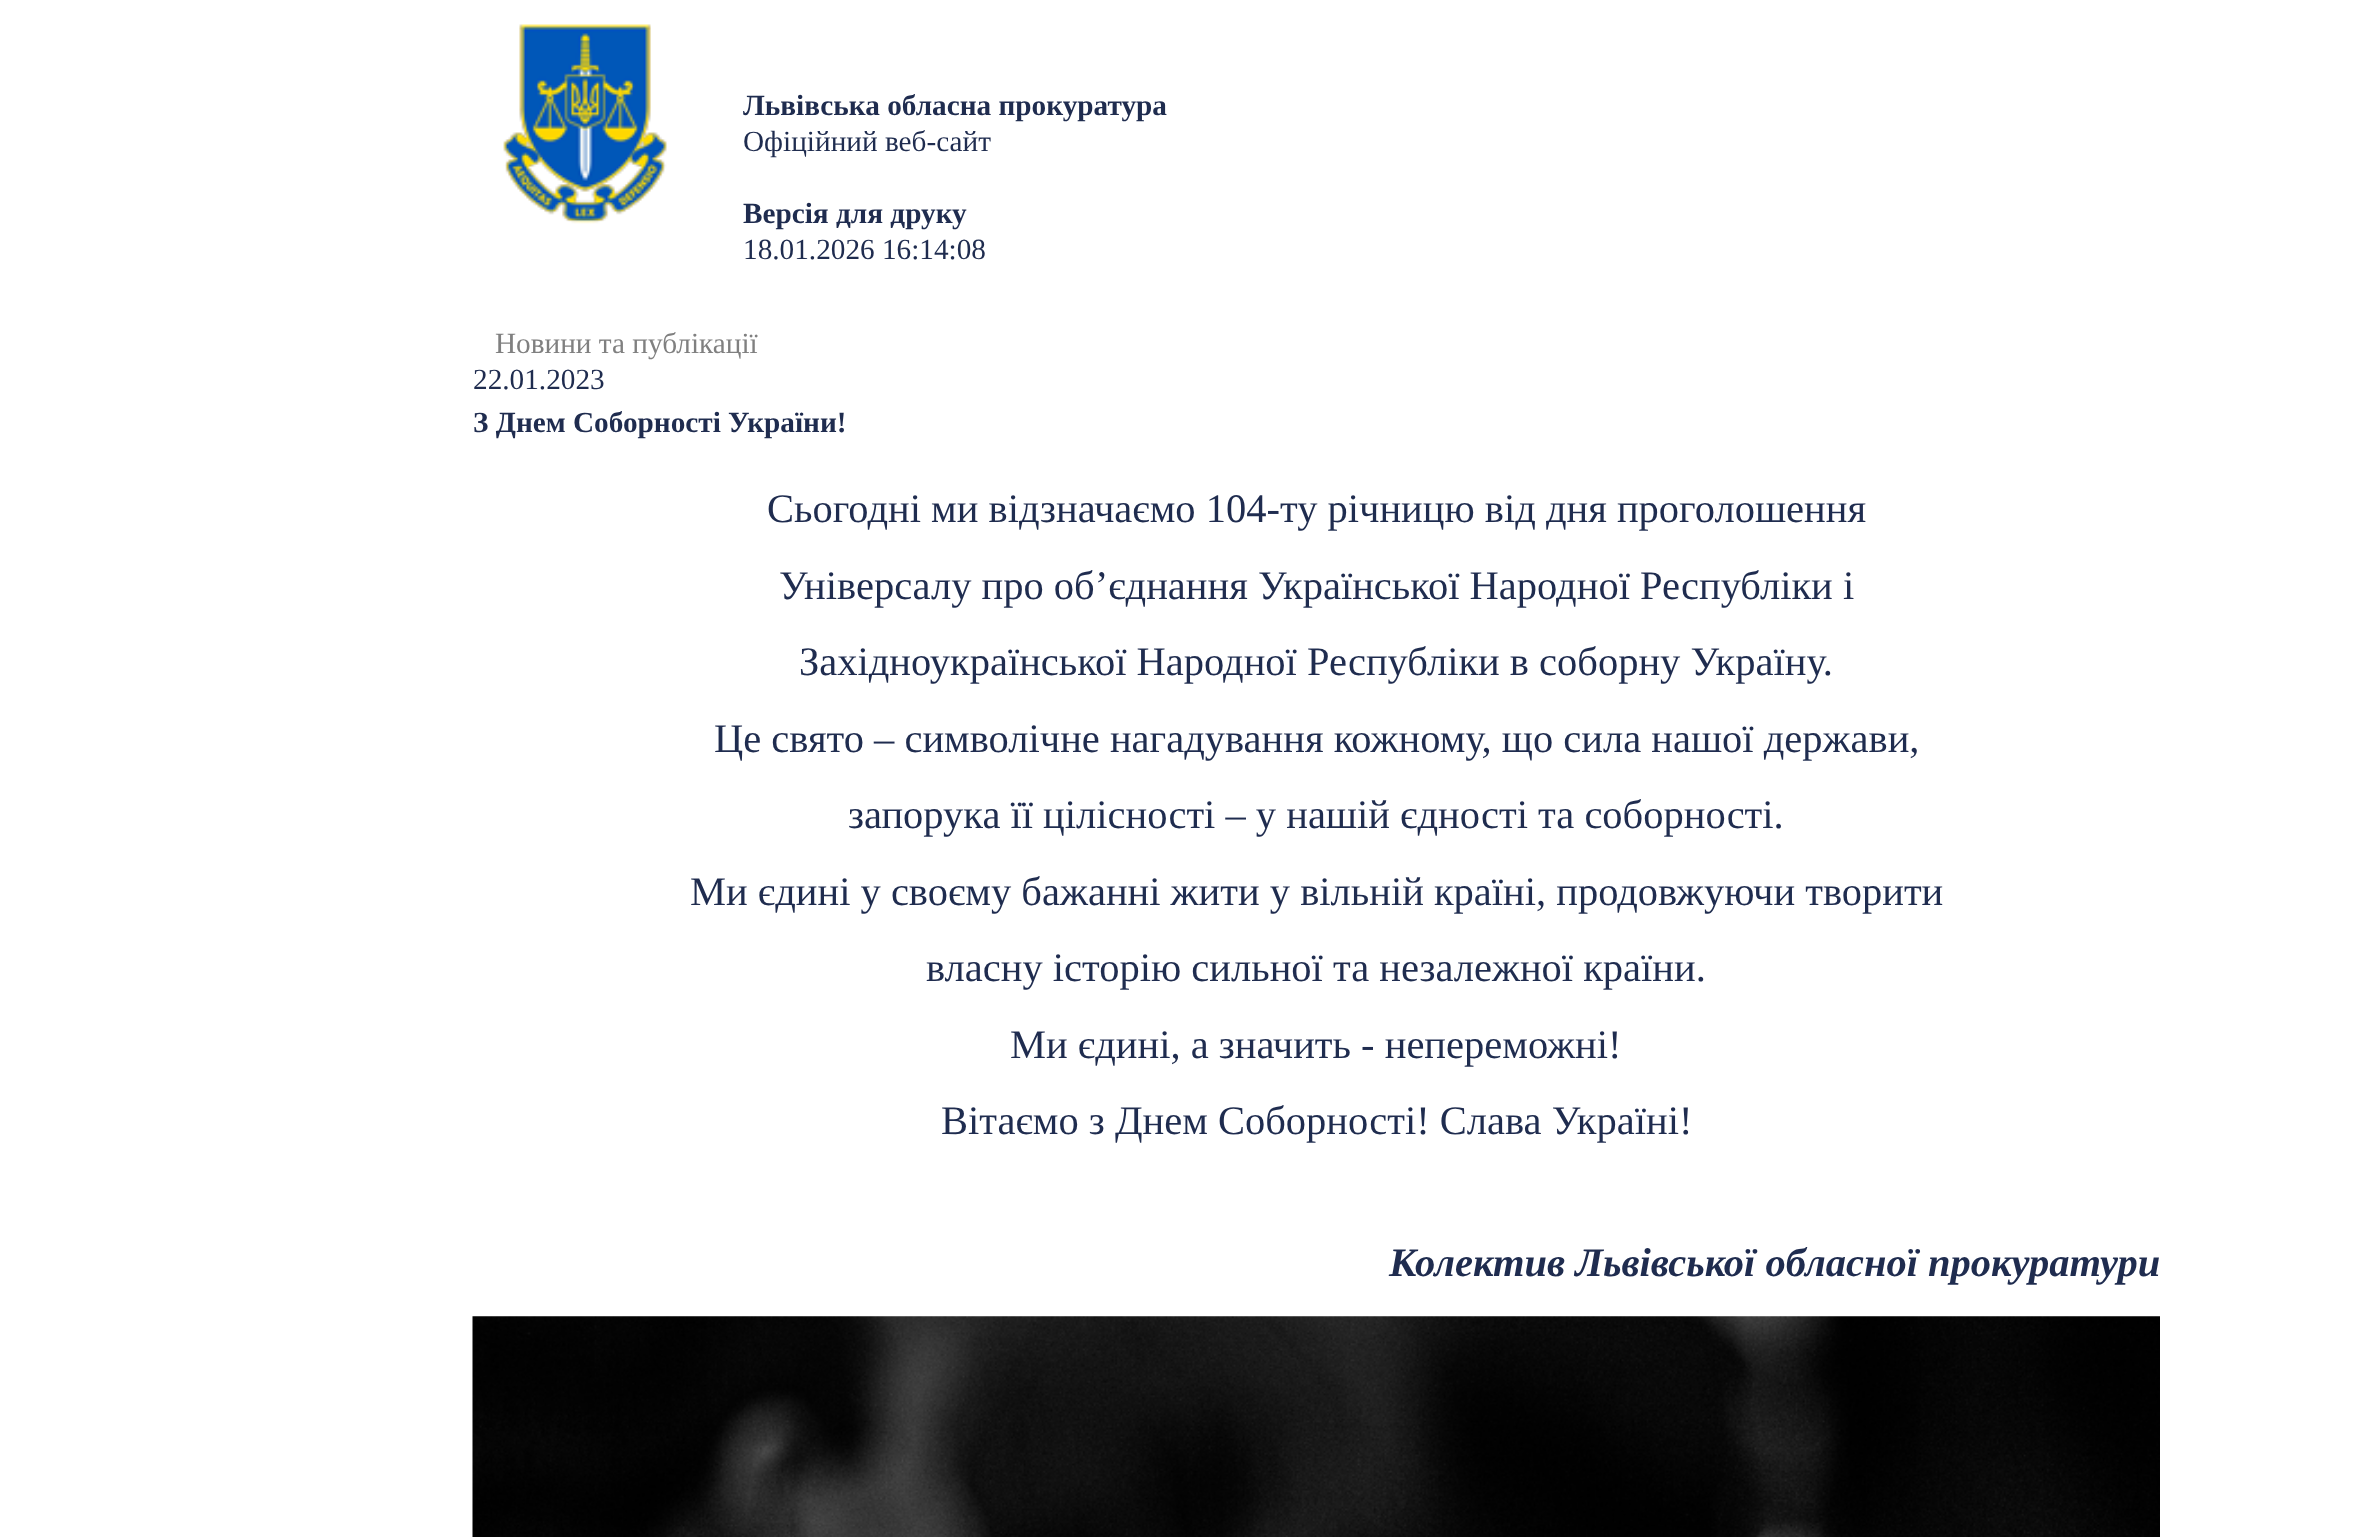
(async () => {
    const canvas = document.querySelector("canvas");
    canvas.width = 2361;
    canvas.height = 1537;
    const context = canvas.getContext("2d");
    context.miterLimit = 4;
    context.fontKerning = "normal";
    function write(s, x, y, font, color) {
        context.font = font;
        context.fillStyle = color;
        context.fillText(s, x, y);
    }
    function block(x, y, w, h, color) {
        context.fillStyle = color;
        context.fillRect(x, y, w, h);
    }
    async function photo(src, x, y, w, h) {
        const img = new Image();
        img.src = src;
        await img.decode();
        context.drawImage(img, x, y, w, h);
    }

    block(0, 0, 2361, 1537, "rgb(255, 255, 255)");
    await photo("media/1.png", 503, 24, 165, 200);
    write("Львівська обласна прокуратура", 743, 115, "bold 29.25px Liberation Serif", "rgb(31, 44, 79)");
    write("Офіційний веб-сайт", 743, 151, "29.25px Liberation Serif", "rgb(31, 44, 79)");
    write("Версія для друку", 743, 223, "bold 29.25px Liberation Serif", "rgb(31, 44, 79)");
    write("18.01.2026 16:14:08", 743, 259, "29.25px Liberation Serif", "rgb(31, 44, 79)");
    write("Новини та публікації", 495, 353, "29.25px Liberation Serif", "rgb(128, 128, 128)");
    write("22.01.2023", 473, 389, "29.25px Liberation Serif", "rgb(31, 44, 79)");
    write("З Днем Соборності України!", 473, 432, "bold 29.25px Liberation Serif", "rgb(31, 44, 79)");
    write("Сьогодні ми відзначаємо 104-ту річницю від дня проголошення", 767, 522, "40.5px Liberation Serif", "rgb(31, 44, 79)");
    write("Універсалу про об’єднання Української Народної Республіки і", 779, 599, "40.5px Liberation Serif", "rgb(31, 44, 79)");
    write("Західноукраїнської Народної Республіки в соборну Україну.", 799, 675, "40.5px Liberation Serif", "rgb(31, 44, 79)");
    write("Це свято – символічне нагадування кожному, що сила нашої держави,", 714, 752, "40.5px Liberation Serif", "rgb(31, 44, 79)");
    write("запорука її цілісності – у нашій єдності та соборності.", 848, 828, "40.5px Liberation Serif", "rgb(31, 44, 79)");
    write("Ми єдині у своєму бажанні жити у вільній країні, продовжуючи творити", 690, 905, "40.5px Liberation Serif", "rgb(31, 44, 79)");
    write("власну історію сильної та незалежної країни.", 926, 981, "40.5px Liberation Serif", "rgb(31, 44, 79)");
    write("Ми єдині, а значить - непереможні!", 1010, 1058, "40.5px Liberation Serif", "rgb(31, 44, 79)");
    write("Вітаємо з Днем Соборності! Слава Україні!", 941, 1134, "40.5px Liberation Serif", "rgb(31, 44, 79)");
    write("Колектив Львівської обласної прокуратури", 1389, 1276, "italic bold 40.5px Liberation Serif", "rgb(31, 44, 79)");
    await photo("media/2.png", 472, 1316, 1688, 221);
})();
